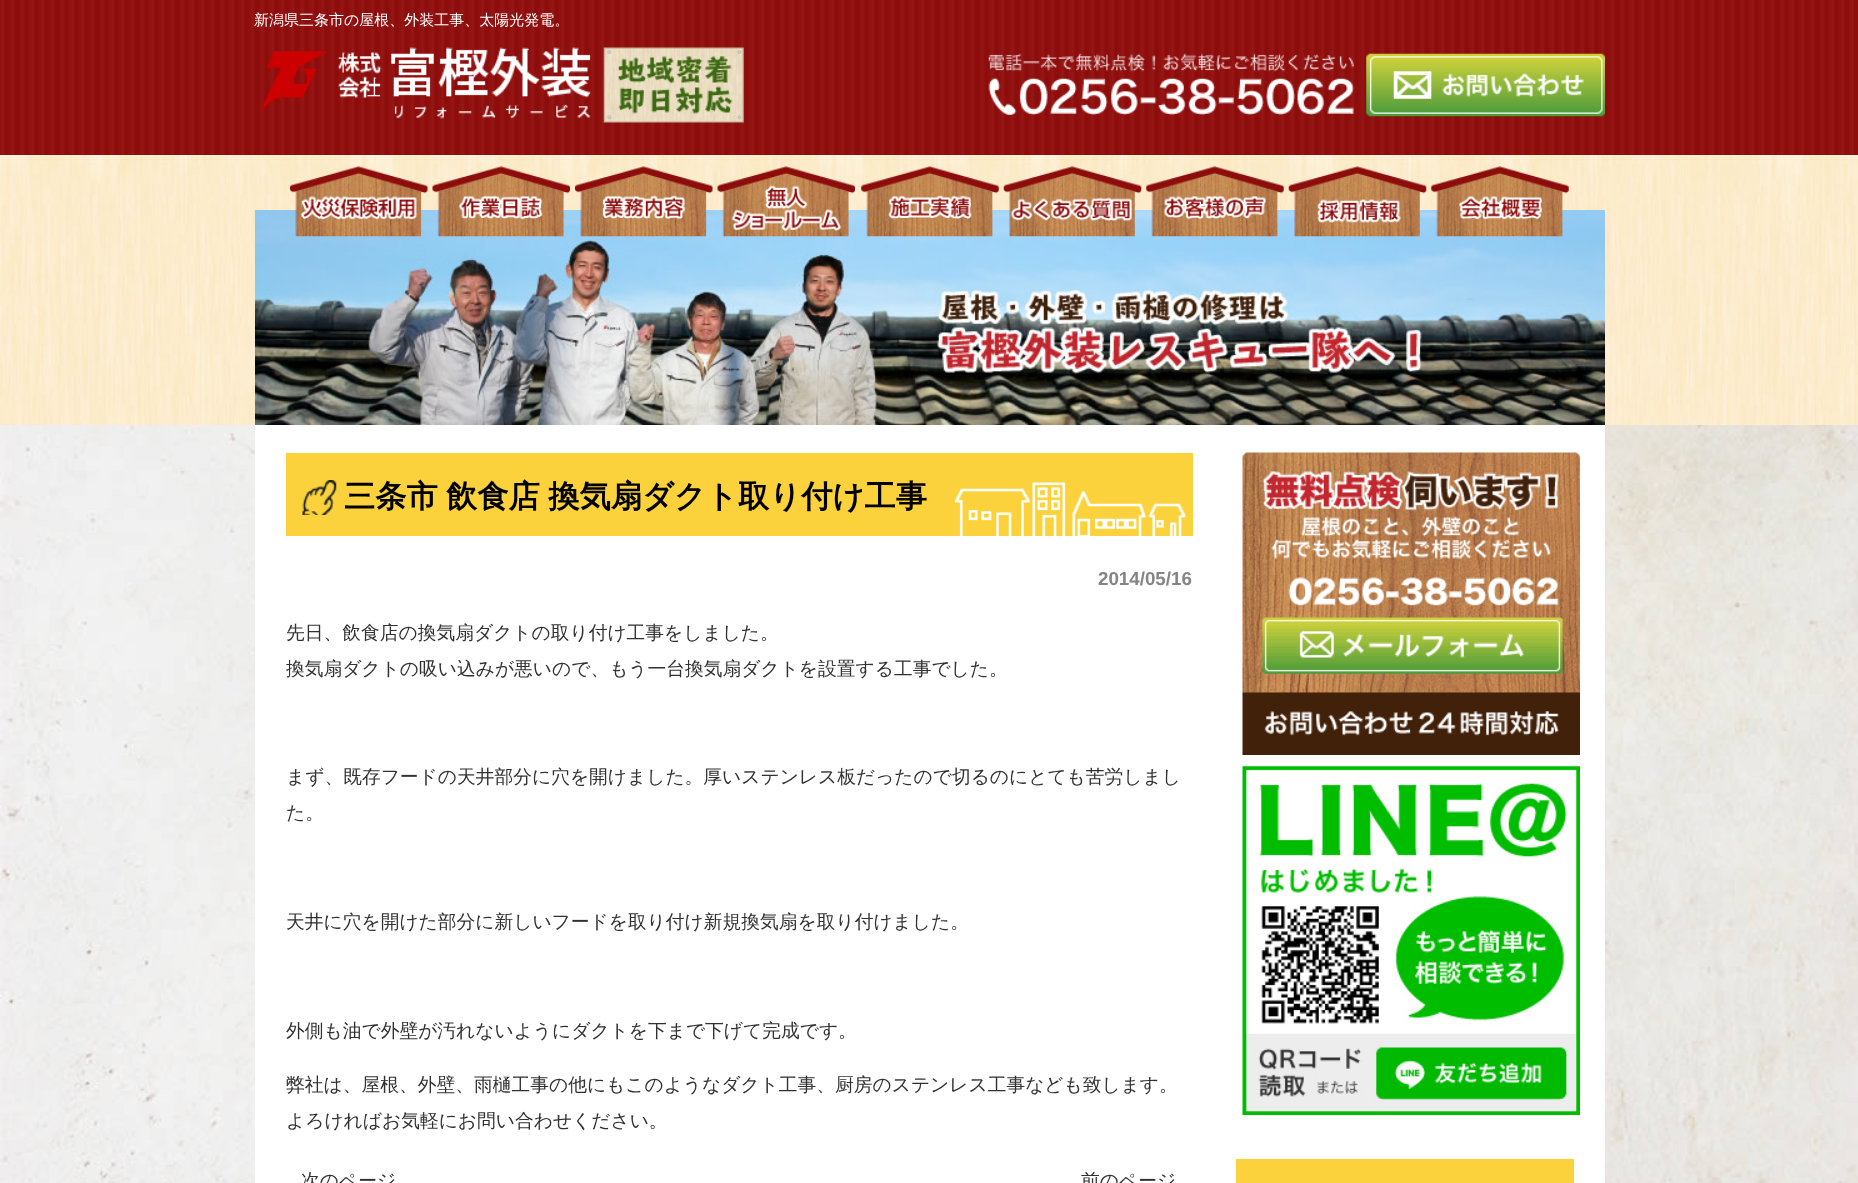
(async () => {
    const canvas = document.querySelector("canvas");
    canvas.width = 1858;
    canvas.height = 1183;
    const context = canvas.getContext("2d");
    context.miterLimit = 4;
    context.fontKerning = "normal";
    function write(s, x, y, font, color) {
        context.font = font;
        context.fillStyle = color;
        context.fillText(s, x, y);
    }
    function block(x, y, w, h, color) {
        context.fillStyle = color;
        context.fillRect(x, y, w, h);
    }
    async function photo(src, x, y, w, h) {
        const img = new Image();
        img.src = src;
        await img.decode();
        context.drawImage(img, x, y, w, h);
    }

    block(0, 0, 1858, 1183, "rgb(255, 255, 255)");
    await photo("media/1.png", 0, 425, 1858, 758);
    block(1854, 0, 4, 155, "rgb(141, 12, 12)");
    await photo("media/2.png", 0, 0, 1854, 155);
    write("新潟県三条市の屋根、外装工事、太陽光発電。", 254, 25, "500 15px WenQuanYi Zen Hei", "rgb(255, 255, 255)");
    await photo("media/3.png", 260, 47, 331, 72);
    await photo("media/4.png", 603, 47, 141, 76);
    await photo("media/5.png", 988, 53, 366, 62);
    await photo("media/6.png", 1366, 53, 239, 64);
    await photo("media/7.png", 0, 155, 1858, 270);
    await photo("media/17.png", 255, 210, 1350, 215);
    await photo("media/8.png", 290, 166, 138, 71);
    await photo("media/9.png", 432, 166, 138, 71);
    await photo("media/10.png", 575, 166, 138, 71);
    await photo("media/11.png", 717, 166, 138, 71);
    await photo("media/12.png", 861, 166, 138, 71);
    await photo("media/13.png", 1003, 166, 139, 71);
    await photo("media/14.png", 1146, 166, 138, 71);
    await photo("media/15.png", 1288, 166, 139, 71);
    await photo("media/16.png", 1431, 166, 138, 71);
    block(255, 425, 1350, 758, "rgb(255, 255, 255)");
    block(286, 453, 907, 83, "rgb(251, 210, 60)");
    await photo("media/18.png", 955, 482, 232, 54);
    await photo("media/19.png", 302, 480, 35, 35);
    context.wordSpacing = "-1px";
    write("三条市 飲食店 換気扇ダクト取り付け工事", 344, 507, "bold 31.25px WenQuanYi Zen Hei", "rgb(0, 0, 0)");
    context.wordSpacing = "0px";
    write("2014/05/16", 1098, 585, "bold 18.75px Liberation Sans", "rgb(133, 133, 133)");
    write("先日、飲食店の換気扇ダクトの取り付け工事をしました。", 286, 639, "500 18.75px WenQuanYi Zen Hei", "rgb(49, 49, 49)");
    write("換気扇ダクトの吸い込みが悪いので、もう一台換気扇ダクトを設置する工事でした。", 286, 675, "500 18.75px WenQuanYi Zen Hei", "rgb(49, 49, 49)");
    write("まず、既存フードの天井部分に穴を開けました。厚いステンレス板だったので切るのにとても苦労しまし", 286, 783, "500 18.75px WenQuanYi Zen Hei", "rgb(49, 49, 49)");
    write("た。", 286, 819, "500 18.75px WenQuanYi Zen Hei", "rgb(49, 49, 49)");
    write("天井に穴を開けた部分に新しいフードを取り付け新規換気扇を取り付けました。", 286, 928, "500 18.75px WenQuanYi Zen Hei", "rgb(49, 49, 49)");
    write("外側も油で外壁が汚れないようにダクトを下まで下げて完成です。", 286, 1037, "500 18.75px WenQuanYi Zen Hei", "rgb(49, 49, 49)");
    write("弊社は、屋根、外壁、雨樋工事の他にもこのようなダクト工事、厨房のステンレス工事なども致します。", 286, 1091, "500 18.75px WenQuanYi Zen Hei", "rgb(49, 49, 49)");
    write("よろければお気軽にお問い合わせください。", 286, 1127, "500 18.75px WenQuanYi Zen Hei", "rgb(49, 49, 49)");
    write("次のページ", 301, 1187, "500 18.75px WenQuanYi Zen Hei", "rgb(49, 49, 49)");
    write("前のページ", 1081, 1187, "500 18.75px WenQuanYi Zen Hei", "rgb(49, 49, 49)");
    await photo("media/20.png", 1242, 452, 338, 303);
    await photo("media/21.png", 1242, 766, 338, 349);
    block(1236, 1159, 338, 24, "rgb(251, 210, 60)");
})();
